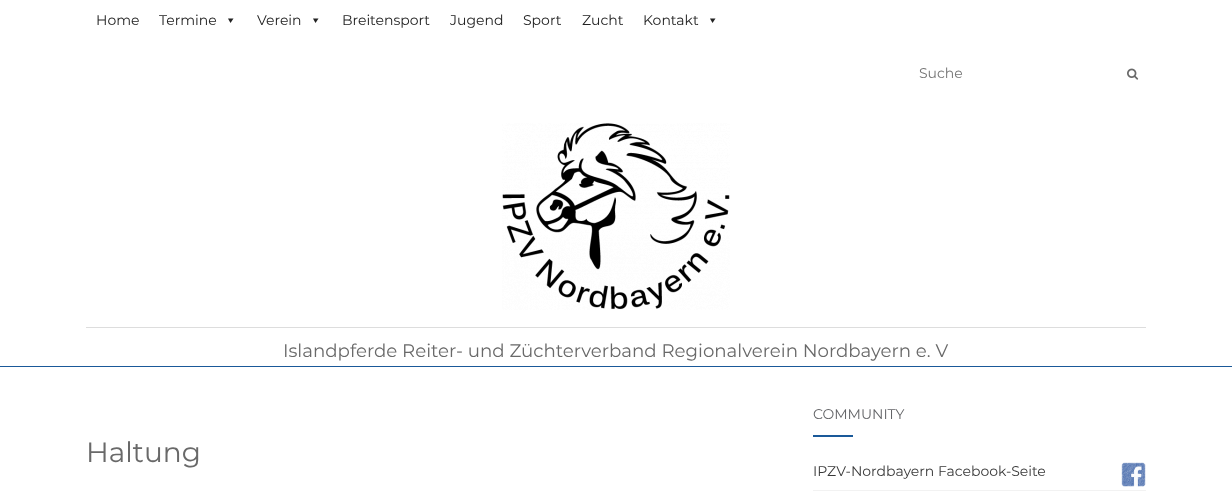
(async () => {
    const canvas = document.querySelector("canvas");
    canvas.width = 1232;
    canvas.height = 500;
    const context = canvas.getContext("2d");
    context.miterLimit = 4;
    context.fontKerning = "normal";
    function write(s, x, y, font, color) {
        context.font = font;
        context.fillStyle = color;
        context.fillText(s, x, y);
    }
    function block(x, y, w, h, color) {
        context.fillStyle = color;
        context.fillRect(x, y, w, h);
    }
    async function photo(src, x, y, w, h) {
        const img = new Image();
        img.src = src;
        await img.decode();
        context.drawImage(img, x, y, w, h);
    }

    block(0, 0, 1232, 500, "rgb(255, 255, 255)");
    write("Home", 96, 25, "14px Montserrat", "rgb(34, 34, 34)");
    write("Termine", 159, 25, "14px Montserrat", "rgb(34, 34, 34)");
    context.beginPath();
    context.moveTo(233.5, 18.5);
    context.lineTo(230.5, 23);
    context.lineTo(228, 18.5);
    context.closePath();
    context.fill();
    write("Verein", 257, 25, "14px Montserrat", "rgb(34, 34, 34)");
    context.beginPath();
    context.moveTo(318.5, 18.5);
    context.lineTo(315.5, 23);
    context.lineTo(313, 18.5);
    context.closePath();
    context.fill();
    write("Breitensport", 342, 25, "14px Montserrat", "rgb(34, 34, 34)");
    write("Jugend", 450, 25, "14px Montserrat", "rgb(34, 34, 34)");
    write("Sport", 523, 25, "14px Montserrat", "rgb(34, 34, 34)");
    write("Zucht", 582, 25, "14px Montserrat", "rgb(34, 34, 34)");
    write("Kontakt", 643, 25, "14px Montserrat", "rgb(34, 34, 34)");
    context.beginPath();
    context.moveTo(715.5, 18.5);
    context.lineTo(712.5, 23);
    context.lineTo(710, 18.5);
    context.closePath();
    context.fill();
    write("Suche", 919, 78, "14px Montserrat", "rgb(117, 117, 117)");
    await photo("media/1.png", 1127, 68, 12, 12);
    await photo("media/2.png", 502, 123, 228, 187);
    block(86, 327, 1060, 1, "rgb(221, 221, 221)");
    block(0, 366, 1232, 1, "rgb(26, 89, 153)");
    write("Islandpferde Reiter- und Züchterverband Regionalverein Nordbayern e. V", 283, 357, "18.2px Montserrat", "rgb(105, 105, 105)");
    write("Haltung", 86, 462, "28px Montserrat", "rgb(105, 105, 105)");
    write("COMMUNITY", 813, 419, "14px Montserrat", "rgb(99, 100, 103)");
    block(813, 435, 40, 2, "rgb(26, 89, 153)");
    block(813, 490, 333, 1, "rgb(242, 242, 242)");
    write("IPZV-Nordbayern Facebook-Seite", 813, 476, "14px Montserrat", "rgb(57, 57, 57)");
    await photo("media/3.png", 1121, 462, 25, 25);
})();
